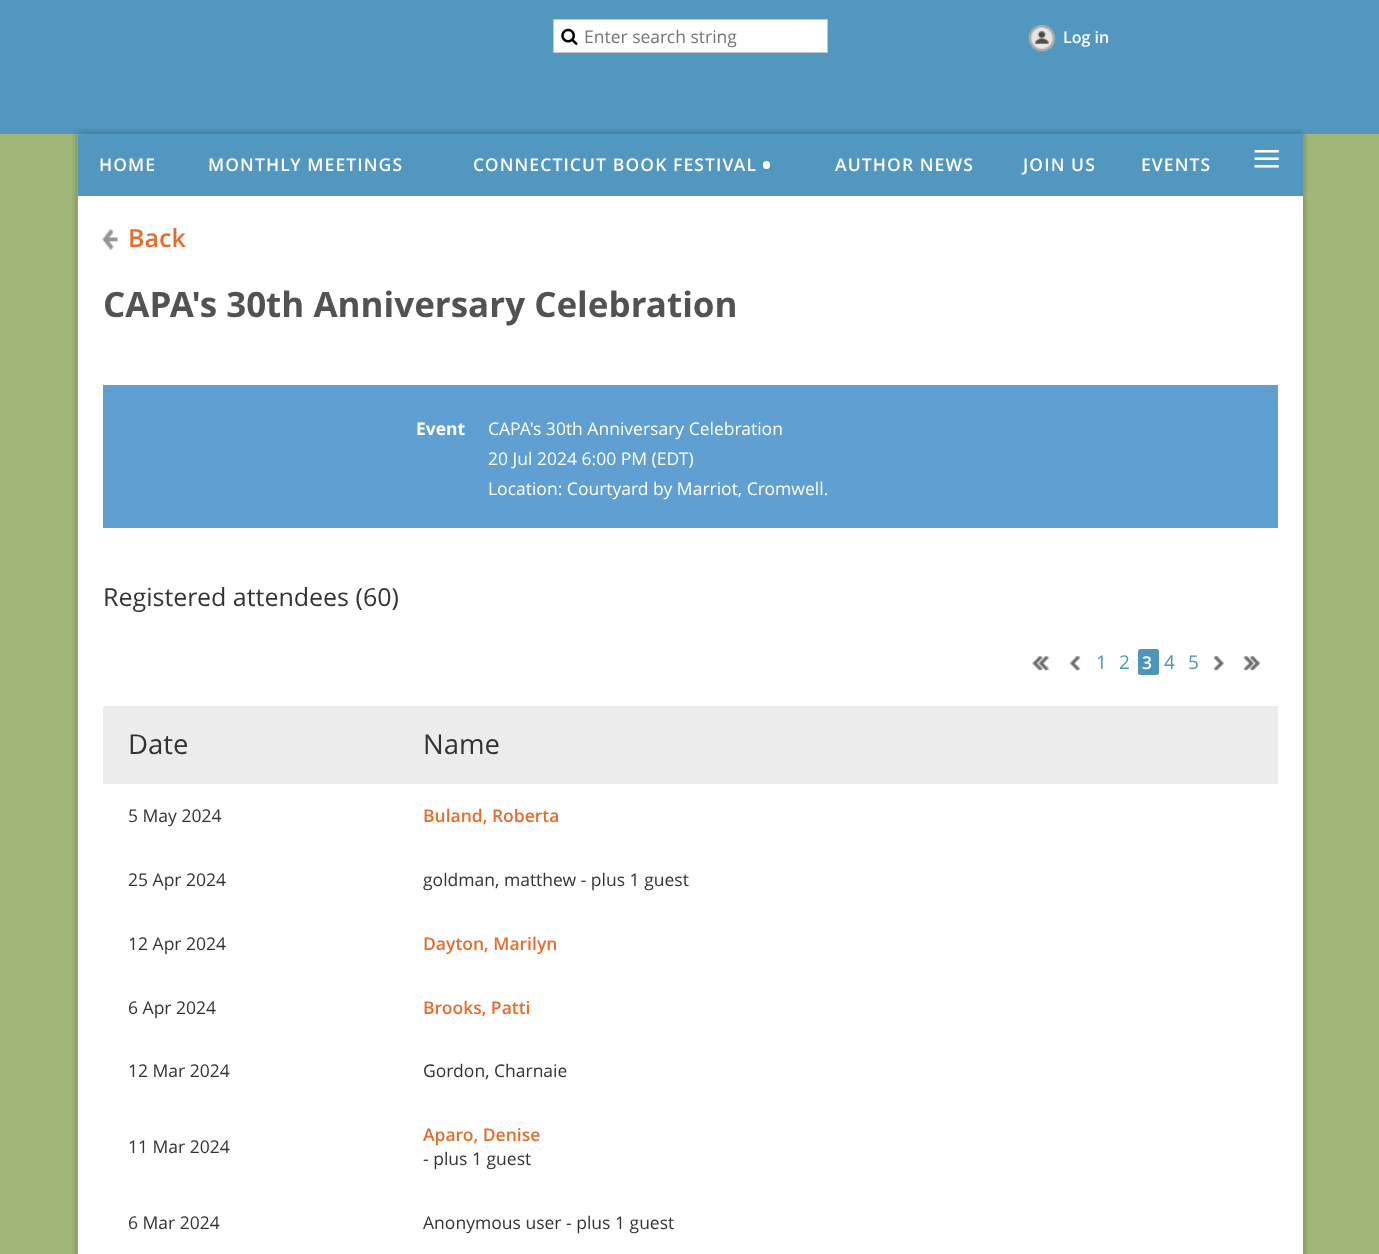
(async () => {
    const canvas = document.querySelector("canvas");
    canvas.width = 1379;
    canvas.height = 1254;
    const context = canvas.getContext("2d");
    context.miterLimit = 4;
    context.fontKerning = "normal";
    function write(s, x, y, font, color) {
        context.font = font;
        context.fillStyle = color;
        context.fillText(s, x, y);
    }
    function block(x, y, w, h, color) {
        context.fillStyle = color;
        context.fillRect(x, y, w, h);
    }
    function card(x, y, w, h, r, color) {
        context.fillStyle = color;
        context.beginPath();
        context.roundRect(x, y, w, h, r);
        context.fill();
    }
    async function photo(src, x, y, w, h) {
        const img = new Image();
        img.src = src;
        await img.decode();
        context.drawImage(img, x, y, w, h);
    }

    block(0, 0, 1379, 1254, "rgb(160, 183, 120)");
    block(0, 0, 1379, 134, "rgb(82, 151, 191)");
    context.fillStyle = "rgb(255, 255, 255)";
    context.beginPath();
    context.rect(553.5, 19.5, 274, 33);
    context.fill();
    context.strokeStyle = "rgb(198, 198, 198)";
    context.stroke();
    await photo("media/1.png", 561, 28, 17, 17);
    write("Enter search string", 584, 43, "17.5px Open Sans", "rgb(117, 117, 117)");
    await photo("media/2.png", 1028, 25, 28, 27);
    write("Log in", 1063, 43, "600 16px Open Sans", "rgb(255, 255, 255)");
    await photo("media/3.png", 74, 128, 1232, 6);
    await photo("media/4.png", 83, 128, 1214, 6);
    await photo("media/5.png", 72, 133, 1236, 64);
    block(78, 134, 1225, 62, "rgb(82, 151, 191)");
    context.letterSpacing = "1.1px";
    write("HOME", 99, 171, "600 17.5px Open Sans", "rgb(255, 255, 255)");
    write("MONTHLY MEETINGS", 208, 171, "600 17.5px Open Sans", "rgb(255, 255, 255)");
    write("CONNECTICUT BOOK FESTIVAL", 473, 171, "600 17.5px Open Sans", "rgb(255, 255, 255)");
    card(763, 161, 7, 8, 3.5, "rgb(255, 255, 255)");
    write("AUTHOR NEWS", 835, 171, "600 17.5px Open Sans", "rgb(255, 255, 255)");
    write("JOIN US", 1023, 171, "600 17.5px Open Sans", "rgb(255, 255, 255)");
    write("EVENTS", 1141, 171, "600 17.5px Open Sans", "rgb(255, 255, 255)");
    write("≡", 1252, 176, "52px Liberation Serif", "rgb(255, 255, 255)");
    await photo("media/6.png", 72, 196, 1236, 1058);
    block(78, 196, 1225, 1058, "rgb(255, 255, 255)");
    await photo("media/7.png", 102, 228, 16, 23);
    context.letterSpacing = "0px";
    write("Back", 128, 247, "600 25px Open Sans", "rgb(226, 109, 44)");
    write("CAPA's 30th Anniversary Celebration", 103, 317, "bold 35px Open Sans", "rgb(82, 82, 82)");
    block(103, 385, 1175, 143, "rgb(95, 159, 210)");
    write("Event", 416, 435, "bold 17.5px Open Sans", "rgb(255, 255, 255)");
    write("CAPA's 30th Anniversary Celebration", 488, 435, "17.5px Open Sans", "rgb(255, 255, 255)");
    write("20 Jul 2024 6:00 PM (EDT)", 488, 465, "17.5px Open Sans", "rgb(255, 255, 255)");
    write("Location: Courtyard by Marriot, Cromwell.", 488, 495, "17.5px Open Sans", "rgb(255, 255, 255)");
    write("Registered attendees (60)", 103, 606, "25px Open Sans", "rgb(51, 51, 51)");
    await photo("media/8.png", 1032, 656, 17, 15);
    await photo("media/9.png", 1069, 656, 12, 15);
    write("1", 1096, 669, "19px Open Sans", "rgb(78, 149, 186)");
    write("2", 1119, 669, "19px Open Sans", "rgb(78, 149, 186)");
    card(1138, 649, 21, 26, 2.5, "rgb(78, 149, 186)");
    write("3", 1142, 669, "600 17.5px Open Sans", "rgb(255, 255, 255)");
    write("4", 1164, 669, "19px Open Sans", "rgb(78, 149, 186)");
    write("5", 1188, 669, "19px Open Sans", "rgb(78, 149, 186)");
    await photo("media/10.png", 1213, 656, 11, 15);
    await photo("media/11.png", 1243, 656, 18, 15);
    block(103, 706, 1175, 78, "rgb(236, 236, 236)");
    write("Date", 128, 754, "27.5px Open Sans", "rgb(51, 51, 51)");
    write("Name", 423, 754, "27.5px Open Sans", "rgb(51, 51, 51)");
    write("5 May 2024", 128, 822, "17.5px Open Sans", "rgb(51, 51, 51)");
    write("Buland, Roberta", 423, 822, "600 17.5px Open Sans", "rgb(226, 109, 44)");
    write("25 Apr 2024", 128, 886, "17.5px Open Sans", "rgb(51, 51, 51)");
    write("goldman, matthew - plus 1 guest", 423, 886, "17.5px Open Sans", "rgb(51, 51, 51)");
    write("12 Apr 2024", 128, 950, "17.5px Open Sans", "rgb(51, 51, 51)");
    write("Dayton, Marilyn", 423, 950, "600 17.5px Open Sans", "rgb(226, 109, 44)");
    write("6 Apr 2024", 128, 1014, "17.5px Open Sans", "rgb(51, 51, 51)");
    write("Brooks, Patti", 423, 1014, "600 17.5px Open Sans", "rgb(226, 109, 44)");
    write("12 Mar 2024", 128, 1077, "17.5px Open Sans", "rgb(51, 51, 51)");
    write("Gordon, Charnaie", 423, 1077, "17.5px Open Sans", "rgb(51, 51, 51)");
    write("11 Mar 2024", 128, 1153, "17.5px Open Sans", "rgb(51, 51, 51)");
    write("Aparo, Denise", 423, 1141, "600 17.5px Open Sans", "rgb(226, 109, 44)");
    write("- plus 1 guest", 423, 1165, "17.5px Open Sans", "rgb(51, 51, 51)");
    write("6 Mar 2024", 128, 1229, "17.5px Open Sans", "rgb(51, 51, 51)");
    write("Anonymous user - plus 1 guest", 423, 1229, "17.5px Open Sans", "rgb(51, 51, 51)");
})();
